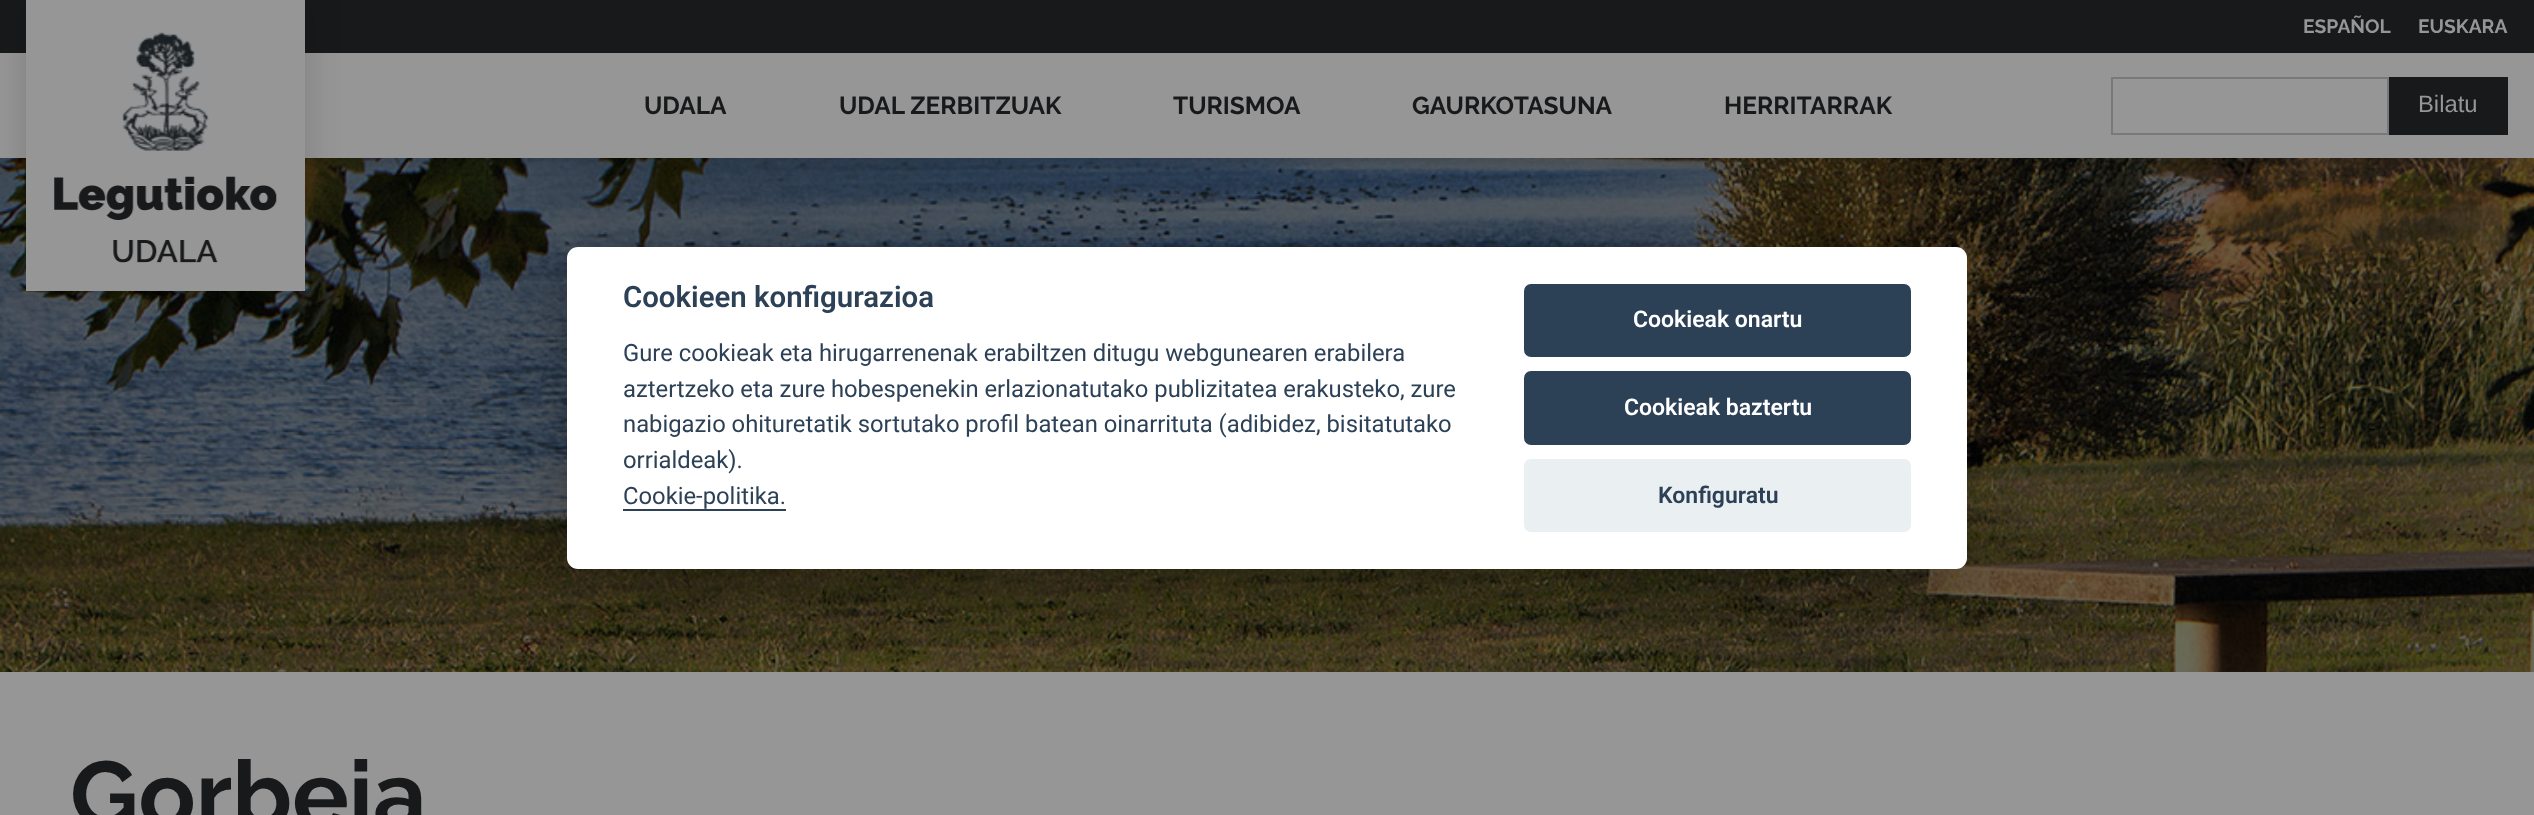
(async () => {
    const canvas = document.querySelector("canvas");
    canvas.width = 2534;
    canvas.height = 815;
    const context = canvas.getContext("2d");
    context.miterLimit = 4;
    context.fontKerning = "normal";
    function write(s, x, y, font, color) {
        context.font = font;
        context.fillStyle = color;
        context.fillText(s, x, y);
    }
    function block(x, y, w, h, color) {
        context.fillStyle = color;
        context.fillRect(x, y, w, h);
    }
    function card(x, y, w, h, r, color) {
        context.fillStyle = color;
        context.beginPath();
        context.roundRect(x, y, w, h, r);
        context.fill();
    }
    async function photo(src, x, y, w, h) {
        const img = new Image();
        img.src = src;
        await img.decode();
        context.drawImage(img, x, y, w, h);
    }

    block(0, 0, 2534, 815, "rgb(255, 255, 255)");
    await photo("media/2.png", 0, 158, 2534, 514);
    context.fillStyle = "rgba(2, 3, 3, 0.16)";
    context.filter = "blur(9px)";
    context.beginPath();
    context.rect(0, 0, 2534, 158);
    context.fill();
    context.filter = "none";
    block(0, 53, 2534, 105, "rgb(150, 150, 151)");
    block(0, 0, 2534, 53, "rgb(24, 25, 26)");
    write("ESPAÑOL", 2303, 33, "bold 19.25px Raleway", "rgb(150, 150, 151)");
    write("EUSKARA", 2418, 33, "bold 19.25px Raleway", "rgb(150, 150, 151)");
    context.fillStyle = "rgba(2, 3, 3, 0.16)";
    context.filter = "blur(17.5px)";
    context.beginPath();
    context.rect(26, 0, 279, 291);
    context.fill();
    context.filter = "none";
    block(26, 0, 279, 291, "rgb(150, 150, 151)");
    await photo("media/1.png", 54, 32, 223, 231);
    write("UDALA", 644, 114, "bold 24.5px Raleway", "rgb(24, 25, 26)");
    write("UDAL ZERBITZUAK", 839, 114, "bold 24.5px Raleway", "rgb(24, 25, 26)");
    write("TURISMOA", 1173, 114, "bold 24.5px Raleway", "rgb(24, 25, 26)");
    write("GAURKOTASUNA", 1412, 114, "bold 24.5px Raleway", "rgb(24, 25, 26)");
    write("HERRITARRAK", 1724, 114, "bold 24.5px Raleway", "rgb(24, 25, 26)");
    context.strokeStyle = "rgb(120, 121, 122)";
    context.lineWidth = 2;
    context.strokeRect(2112, 78, 276, 56);
    block(2389, 77, 119, 58, "rgb(24, 25, 26)");
    write("Bilatu", 2418, 112, "23.8px Liberation Sans", "rgb(150, 150, 151)");
    block(0, 672, 2534, 143, "rgb(150, 150, 151)");
    write("Gorbeia", 70, 828, "bold 94.5px Raleway", "rgb(24, 25, 26)");
    context.fillStyle = "rgba(2, 2, 3, 0.28)";
    context.filter = "blur(26px)";
    context.beginPath();
    context.roundRect(567, 264, 1400, 322, 11);
    context.fill();
    context.filter = "none";
    card(567, 247, 1400, 322, 11, "rgb(255, 255, 255)");
    write("Cookieen konfigurazioa", 623, 307, "600 29.4px Roboto", "rgb(45, 65, 86)");
    write("Gure cookieak eta hirugarrenenak erabiltzen ditugu webgunearen erabilera", 623, 361, "23.8px Roboto", "rgb(45, 65, 86)");
    write("aztertzeko eta zure hobespenekin erlazionatutako publizitatea erakusteko, zure", 623, 397, "23.8px Roboto", "rgb(45, 65, 86)");
    write("nabigazio ohituretatik sortutako profil batean oinarrituta (adibidez, bisitatutako", 623, 432, "23.8px Roboto", "rgb(45, 65, 86)");
    write("orrialdeak).", 623, 468, "23.8px Roboto", "rgb(45, 65, 86)");
    write("Cookie-politika.", 623, 504, "23.8px Roboto", "rgb(45, 65, 86)");
    block(623, 509, 163, 2, "rgb(45, 65, 86)");
    card(1524, 284, 387, 73, 7, "rgb(45, 65, 86)");
    write("Cookieak onartu", 1633, 327, "600 23px Roboto", "rgb(255, 255, 255)");
    card(1524, 371, 387, 74, 7, "rgb(45, 65, 86)");
    write("Cookieak baztertu", 1624, 415, "600 23px Roboto", "rgb(255, 255, 255)");
    card(1524, 459, 387, 73, 7, "rgb(234, 239, 242)");
    write("Konfiguratu", 1658, 503, "600 23px Roboto", "rgb(45, 65, 86)");
})();
